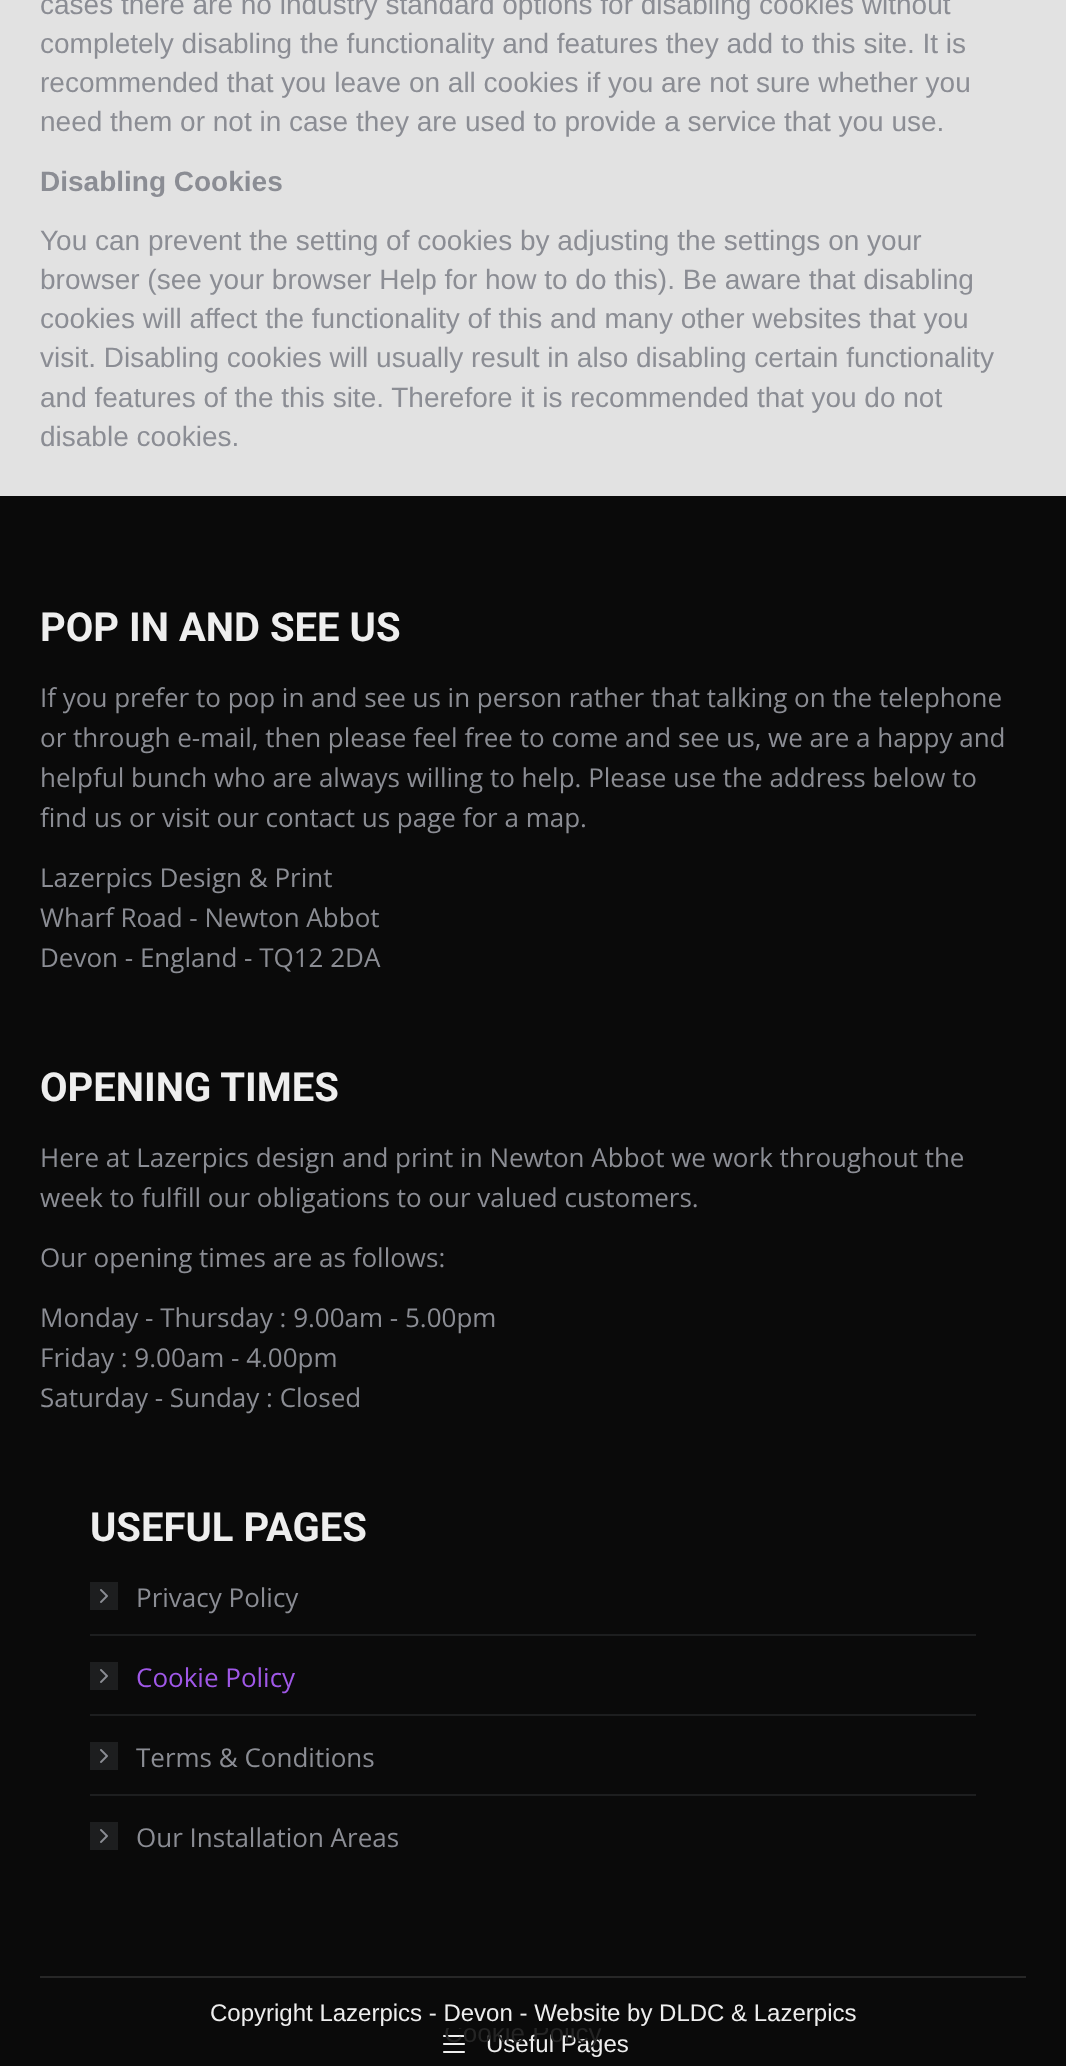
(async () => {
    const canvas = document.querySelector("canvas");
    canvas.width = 1066;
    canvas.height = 2066;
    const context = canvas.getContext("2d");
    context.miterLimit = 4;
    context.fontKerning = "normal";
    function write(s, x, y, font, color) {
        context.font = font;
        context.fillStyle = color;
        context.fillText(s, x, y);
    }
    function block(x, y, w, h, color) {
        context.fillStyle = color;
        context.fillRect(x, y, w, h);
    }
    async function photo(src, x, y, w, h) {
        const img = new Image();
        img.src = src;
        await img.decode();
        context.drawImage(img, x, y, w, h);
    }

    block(0, 0, 1066, 2066, "rgb(226, 226, 226)");
    write("cases there are no industry standard options for disabling cookies without", 40, 14, "28px Liberation Sans", "rgb(139, 141, 148)");
    write("completely disabling the functionality and features they add to this site. It is", 40, 53, "28px Liberation Sans", "rgb(139, 141, 148)");
    write("recommended that you leave on all cookies if you are not sure whether you", 40, 92, "28px Liberation Sans", "rgb(139, 141, 148)");
    write("need them or not in case they are used to provide a service that you use.", 40, 131, "28px Liberation Sans", "rgb(139, 141, 148)");
    write("Disabling Cookies", 40, 191, "bold 28px Liberation Sans", "rgb(139, 141, 148)");
    write("You can prevent the setting of cookies by adjusting the settings on your", 40, 250, "28px Liberation Sans", "rgb(139, 141, 148)");
    write("browser (see your browser Help for how to do this). Be aware that disabling", 40, 289, "28px Liberation Sans", "rgb(139, 141, 148)");
    write("cookies will affect the functionality of this and many other websites that you", 40, 328, "28px Liberation Sans", "rgb(139, 141, 148)");
    write("visit. Disabling cookies will usually result in also disabling certain functionality", 40, 367, "28px Liberation Sans", "rgb(139, 141, 148)");
    write("and features of the this site. Therefore it is recommended that you do not", 40, 407, "28px Liberation Sans", "rgb(139, 141, 148)");
    write("disable cookies.", 40, 446, "28px Liberation Sans", "rgb(139, 141, 148)");
    block(0, 496, 1066, 1570, "rgb(10, 10, 10)");
    write("POP IN AND SEE US", 40, 641, "bold 40px Roboto", "rgb(238, 238, 238)");
    write("If you prefer to pop in and see us in person rather that talking on the telephone", 40, 707, "26px Open Sans", "rgb(139, 141, 148)");
    write("or through e-mail, then please feel free to come and see us, we are a happy and", 40, 747, "26px Open Sans", "rgb(139, 141, 148)");
    write("helpful bunch who are always willing to help. Please use the address below to", 40, 787, "26px Open Sans", "rgb(139, 141, 148)");
    write("find us or visit our contact us page for a map.", 40, 827, "26px Open Sans", "rgb(139, 141, 148)");
    write("Lazerpics Design & Print", 40, 887, "26px Open Sans", "rgb(139, 141, 148)");
    write("Wharf Road - Newton Abbot", 40, 927, "26px Open Sans", "rgb(139, 141, 148)");
    write("Devon - England - TQ12 2DA", 40, 967, "26px Open Sans", "rgb(139, 141, 148)");
    write("OPENING TIMES", 40, 1101, "bold 40px Roboto", "rgb(238, 238, 238)");
    write("Here at Lazerpics design and print in Newton Abbot we work throughout the", 40, 1167, "26px Open Sans", "rgb(139, 141, 148)");
    write("week to fulfill our obligations to our valued customers.", 40, 1207, "26px Open Sans", "rgb(139, 141, 148)");
    write("Our opening times are as follows:", 40, 1267, "26px Open Sans", "rgb(139, 141, 148)");
    write("Monday - Thursday : 9.00am - 5.00pm", 40, 1327, "26px Open Sans", "rgb(139, 141, 148)");
    write("Friday : 9.00am - 4.00pm", 40, 1367, "26px Open Sans", "rgb(139, 141, 148)");
    write("Saturday - Sunday : Closed", 40, 1407, "26px Open Sans", "rgb(139, 141, 148)");
    write("USEFUL PAGES", 90, 1541, "bold 40px Roboto", "rgb(238, 238, 238)");
    block(90, 1582, 28, 28, "rgb(29, 30, 31)");
    write("Privacy Policy", 136, 1607, "26px Open Sans", "rgb(139, 141, 148)");
    await photo("media/1.png", 100, 1589, 8, 14);
    block(90, 1634, 886, 2, "rgb(29, 30, 31)");
    block(90, 1662, 28, 28, "rgb(29, 30, 31)");
    write("Cookie Policy", 136, 1687, "26px Open Sans", "rgb(160, 88, 232)");
    await photo("media/1.png", 100, 1669, 8, 14);
    block(90, 1714, 886, 2, "rgb(29, 30, 31)");
    block(90, 1742, 28, 28, "rgb(29, 30, 31)");
    write("Terms & Conditions", 136, 1767, "26px Open Sans", "rgb(139, 141, 148)");
    await photo("media/1.png", 100, 1749, 8, 14);
    block(90, 1794, 886, 2, "rgb(29, 30, 31)");
    block(90, 1822, 28, 28, "rgb(29, 30, 31)");
    write("Our Installation Areas", 136, 1847, "26px Open Sans", "rgb(139, 141, 148)");
    await photo("media/1.png", 100, 1829, 8, 14);
    block(40, 1976, 986, 2, "rgb(39, 39, 39)");
    write("Copyright Lazerpics - Devon - Website by DLDC & Lazerpics", 210, 2021, "24px Liberation Sans", "rgb(238, 238, 238)");
    await photo("media/2.png", 443, 2035, 22, 18);
    write("Useful Pages", 486, 2052, "24px Liberation Sans", "rgb(238, 238, 238)");
    context.save();
    context.beginPath();
    context.rect(444, 2028, 184, 24);
    context.clip();
    write("Cookie Policy", 444, 2042, "26px Liberation Sans", "rgb(36, 36, 36)");
    context.restore();
})();
